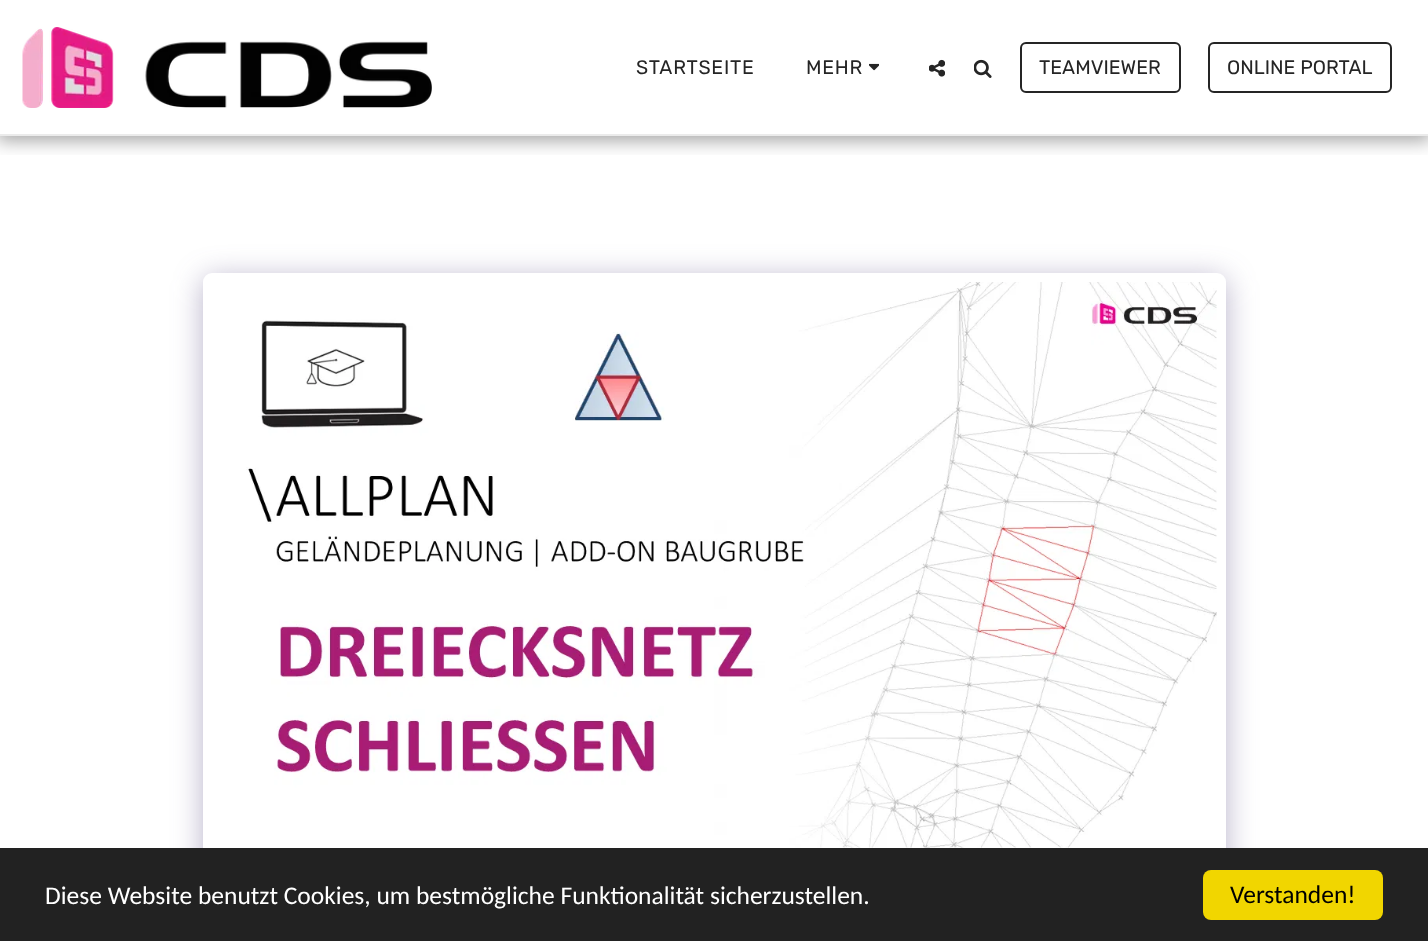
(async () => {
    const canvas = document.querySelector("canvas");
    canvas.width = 1428;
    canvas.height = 941;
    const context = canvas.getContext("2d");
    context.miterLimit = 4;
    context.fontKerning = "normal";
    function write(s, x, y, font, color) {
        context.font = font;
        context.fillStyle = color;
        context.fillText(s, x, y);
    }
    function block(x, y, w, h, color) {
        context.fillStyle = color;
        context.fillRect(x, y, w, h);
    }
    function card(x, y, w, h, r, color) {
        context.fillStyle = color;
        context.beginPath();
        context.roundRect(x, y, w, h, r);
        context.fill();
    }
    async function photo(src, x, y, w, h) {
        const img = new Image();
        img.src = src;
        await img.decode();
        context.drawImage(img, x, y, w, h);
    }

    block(0, 0, 1428, 941, "rgb(255, 255, 255)");
    context.save();
    context.beginPath();
    context.rect(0, 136, 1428, 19);
    context.clip();
    context.fillStyle = "rgba(0, 0, 0, 0.35)";
    context.filter = "blur(9px)";
    context.beginPath();
    context.rect(-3, 0, 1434, 141);
    context.fill();
    context.filter = "none";
    context.restore();
    block(0, 134, 1428, 2, "rgb(235, 235, 235)");
    await photo("media/1.png", 22, 27, 410, 81);
    context.letterSpacing = "0.75px";
    write("STARTSEITE", 636, 74, "19.5px Rubik", "rgb(37, 37, 37)");
    write("MEHR", 806, 74, "19.5px Rubik", "rgb(37, 37, 37)");
    await photo("media/2.png", 869, 63, 10, 8);
    await photo("media/3.png", 929, 59, 16, 18);
    await photo("media/4.png", 974, 59, 18, 19);
    context.beginPath();
    context.roundRect(1021, 43, 159, 49, 5);
    context.strokeStyle = "rgb(37, 37, 37)";
    context.lineWidth = 2;
    context.stroke();
    context.letterSpacing = "0px";
    write("TEAMVIEWER", 1039, 74, "19.5px Rubik", "rgb(37, 37, 37)");
    context.beginPath();
    context.roundRect(1209, 43, 182, 49, 5);
    context.stroke();
    write("ONLINE PORTAL", 1227, 74, "19.5px Rubik", "rgb(37, 37, 37)");
    context.fillStyle = "rgba(77, 63, 122, 0.4)";
    context.filter = "blur(15px)";
    context.beginPath();
    context.roundRect(203, 278, 1023, 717, 9);
    context.fill();
    context.filter = "none";
    card(203, 273, 1023, 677, 9, "rgb(255, 255, 255)");
    await photo("media/5.png", 246, 282, 971, 566);
    block(0, 848, 1428, 93, "rgb(34, 34, 34)");
    write("Diese Website benutzt Cookies, um bestmögliche Funktionalität sicherzustellen.", 45, 904, "25.5px Carlito", "rgb(255, 255, 255)");
    card(1203, 870, 180, 50, 8, "rgb(241, 214, 0)");
    write("Verstanden!", 1230, 903, "25.5px Carlito", "rgb(0, 0, 0)");
})();
